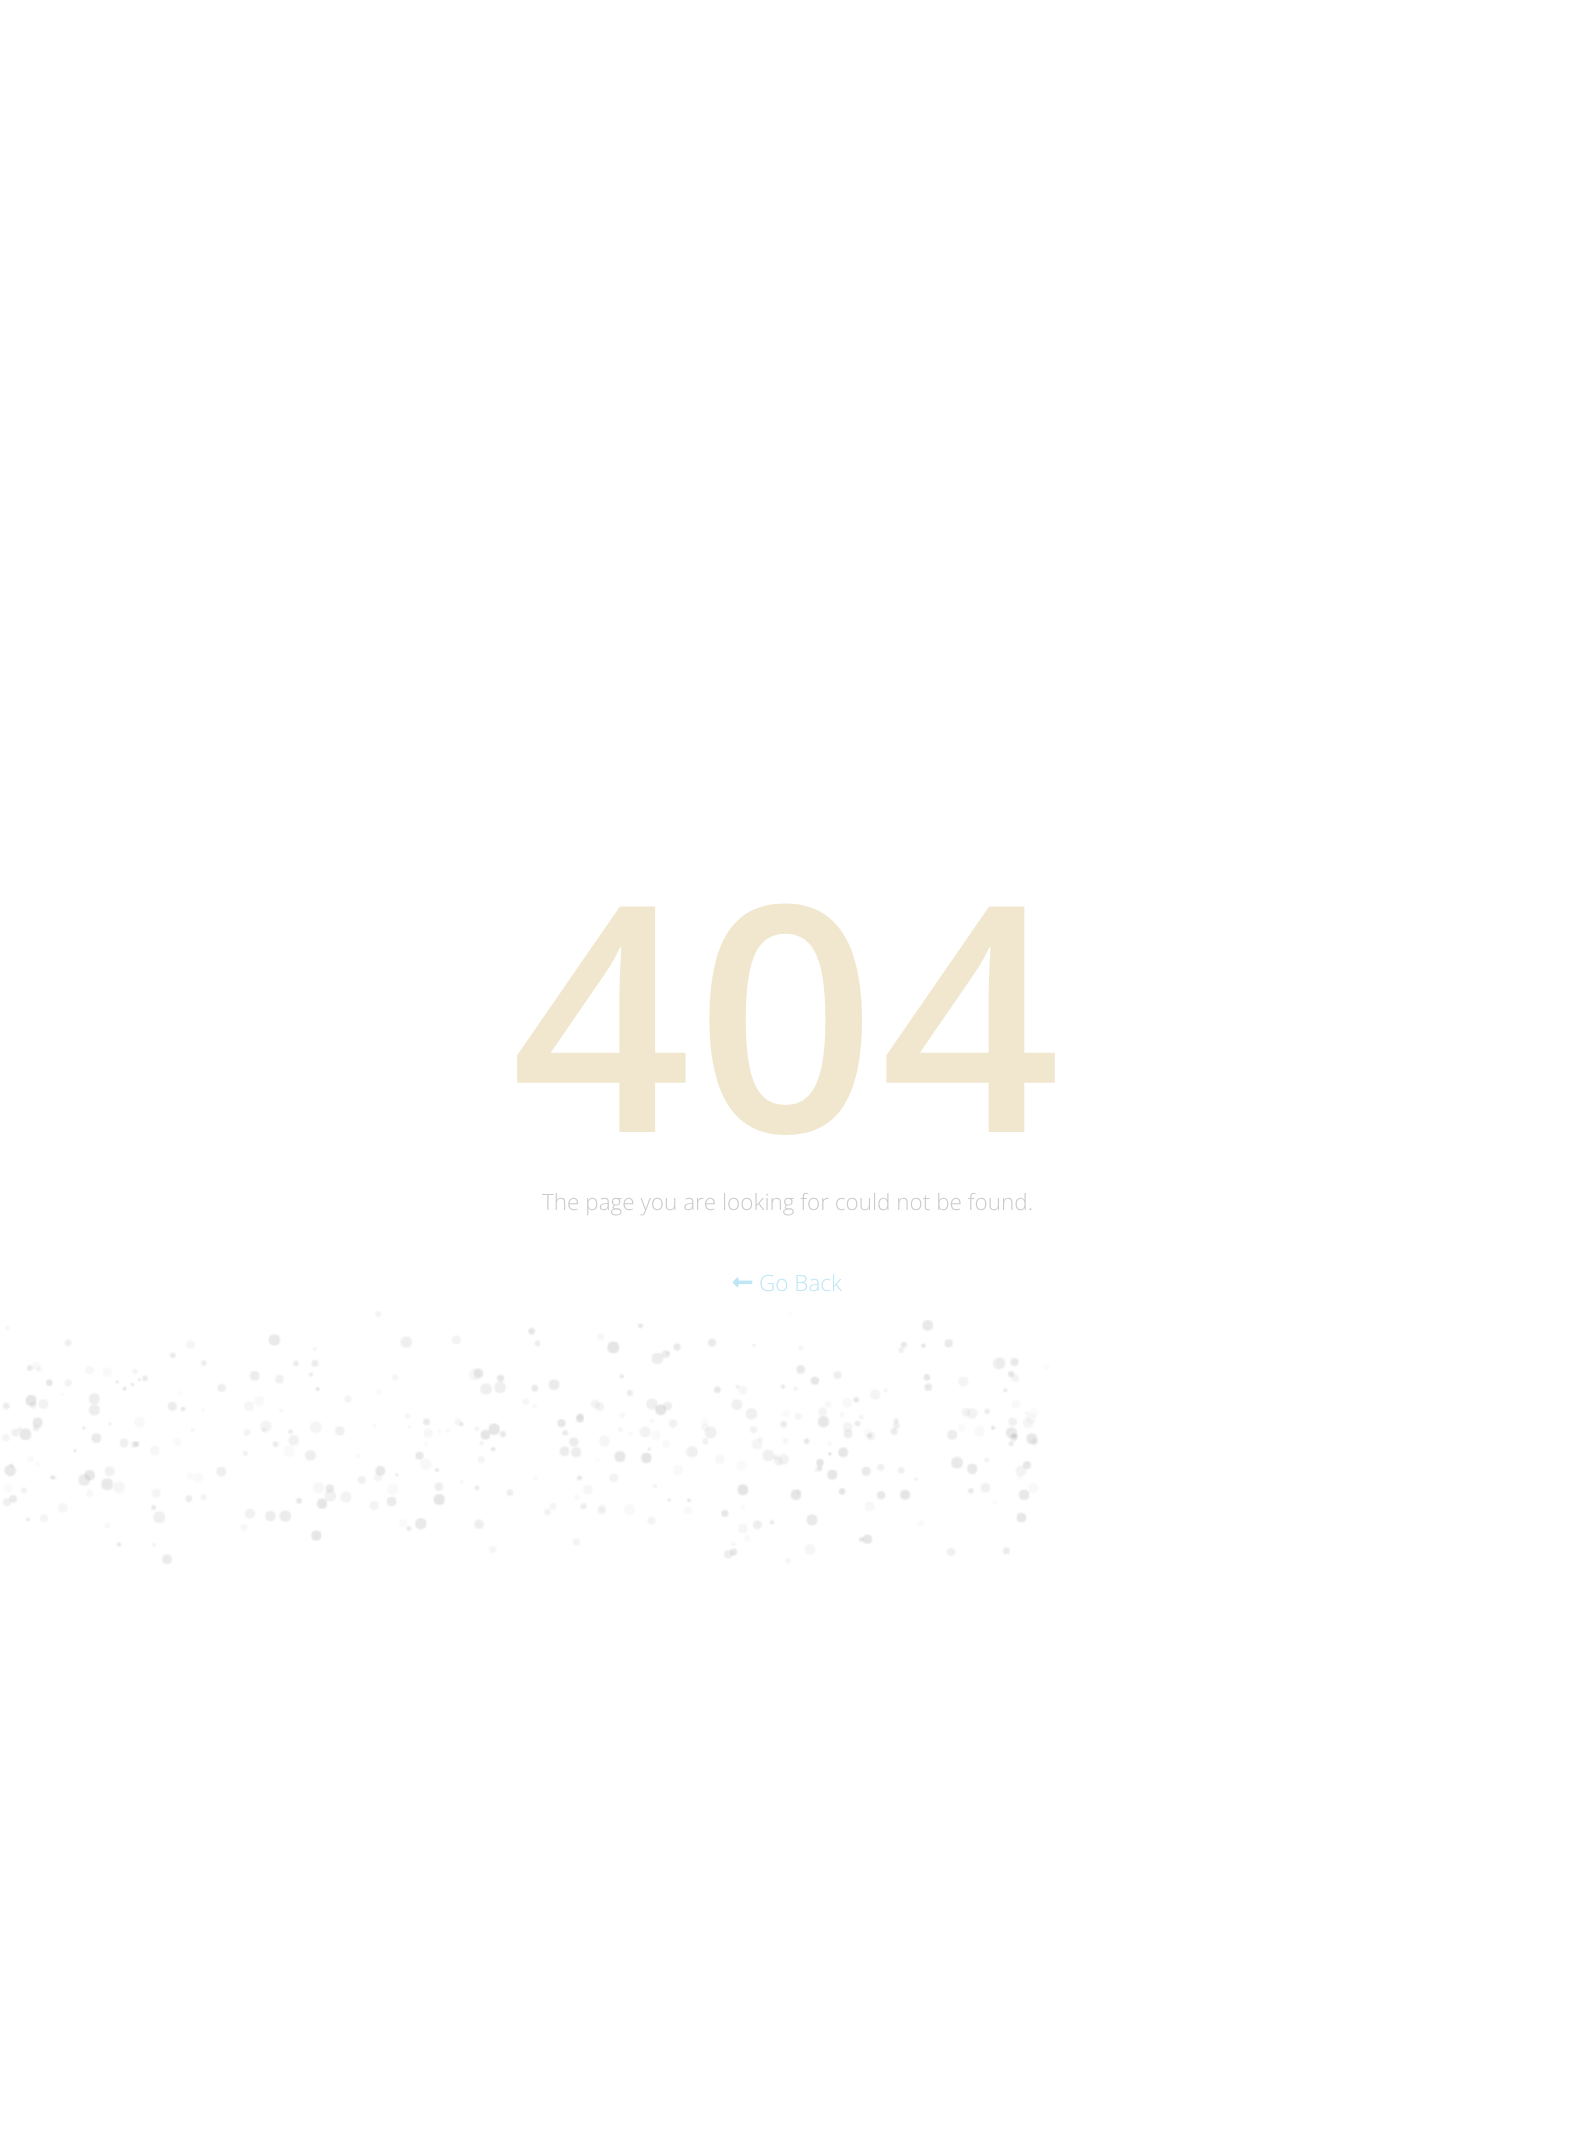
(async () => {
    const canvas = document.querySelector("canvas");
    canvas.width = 1575;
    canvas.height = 2135;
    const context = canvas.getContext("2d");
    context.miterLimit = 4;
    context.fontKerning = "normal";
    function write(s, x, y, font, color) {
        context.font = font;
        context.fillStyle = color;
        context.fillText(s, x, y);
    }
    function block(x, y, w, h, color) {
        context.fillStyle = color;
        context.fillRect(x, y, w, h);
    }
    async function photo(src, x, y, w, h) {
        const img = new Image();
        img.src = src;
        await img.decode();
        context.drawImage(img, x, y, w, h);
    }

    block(0, 0, 1575, 2135, "rgb(255, 255, 255)");
    context.letterSpacing = "4.5px";
    write("404", 511, 1132, "600 315px Open Sans", "rgb(241, 231, 206)");
    context.letterSpacing = "0px";
    write("The page you are looking for could not be found.", 542, 1210, "300 22.5px Open Sans", "rgb(203, 203, 203)");
    await photo("media/1.png", 732, 1277, 21, 11);
    write("Go Back", 759, 1291, "300 22.5px Open Sans", "rgb(192, 230, 246)");
    await photo("media/2.png", 1, 1311, 1049, 254);
})();
